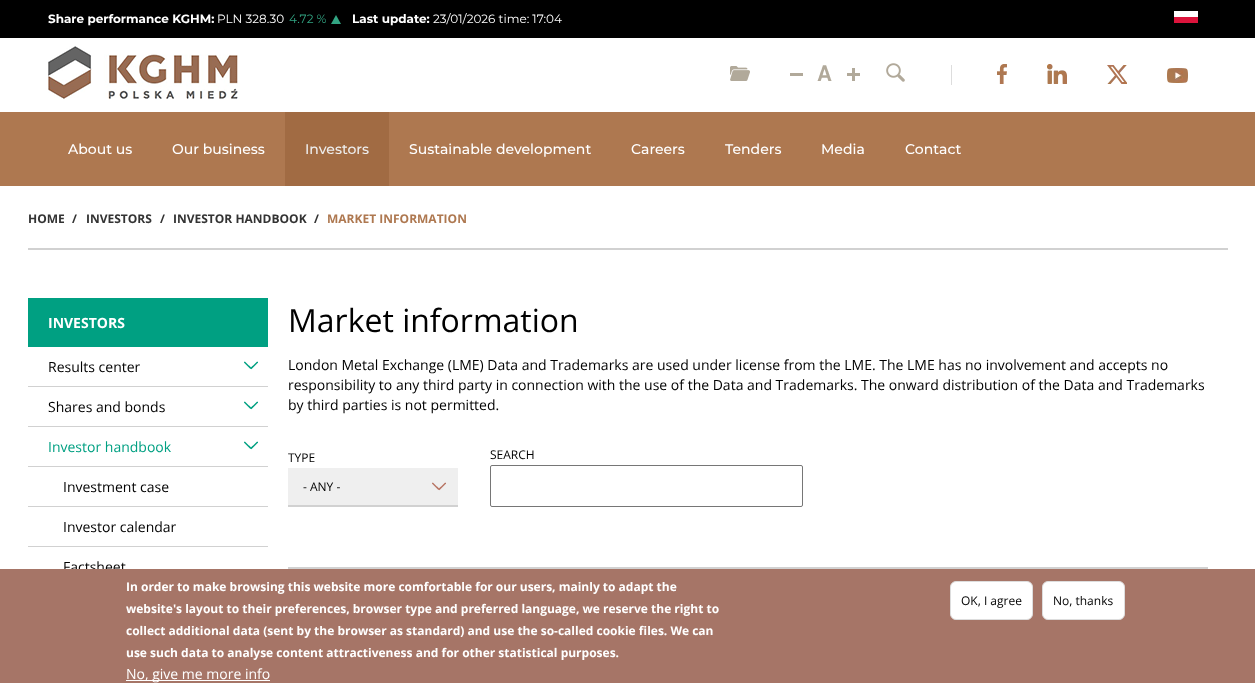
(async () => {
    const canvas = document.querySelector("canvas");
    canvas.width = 1255;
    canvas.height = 683;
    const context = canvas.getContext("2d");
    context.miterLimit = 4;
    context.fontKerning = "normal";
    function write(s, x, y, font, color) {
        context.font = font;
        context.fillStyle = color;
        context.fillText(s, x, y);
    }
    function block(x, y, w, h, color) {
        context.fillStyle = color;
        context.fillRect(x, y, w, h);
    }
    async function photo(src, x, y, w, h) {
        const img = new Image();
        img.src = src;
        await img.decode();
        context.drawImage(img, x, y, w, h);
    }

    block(0, 0, 1255, 683, "rgb(255, 255, 255)");
    block(0, 0, 1255, 38, "rgb(0, 0, 0)");
    write("Share performance KGHM:", 48, 23, "bold 12px Montserrat", "rgb(255, 255, 255)");
    write("PLN 328.30", 217, 23, "12px Montserrat", "rgb(255, 255, 255)");
    context.fillStyle = "rgb(50, 165, 131)";
    context.beginPath();
    context.moveTo(336, 15);
    context.lineTo(341, 24);
    context.lineTo(331, 24);
    context.closePath();
    context.fill();
    write("4.72 %", 289, 23, "12px Montserrat", "rgb(50, 165, 131)");
    write("Last update:", 352, 23, "bold 12px Montserrat", "rgb(255, 255, 255)");
    write("23/01/2026 time: 17:04", 433, 23, "12px Montserrat", "rgb(255, 255, 255)");
    await photo("media/1.png", 1174, 11, 24, 12);
    await photo("media/2.png", 48, 46, 190, 53);
    await photo("media/3.png", 730, 66, 20, 15);
    block(790, 73, 13, 3, "rgb(177, 169, 154)");
    await photo("media/4.png", 817, 65, 15, 16);
    await photo("media/5.png", 847, 68, 13, 13);
    await photo("media/6.png", 886, 63, 19, 19);
    block(951, 65, 1, 20, "rgb(221, 221, 221)");
    await photo("media/7.png", 997, 64, 10, 20);
    await photo("media/8.png", 1047, 64, 20, 20);
    await photo("media/9.png", 1107, 65, 20, 19);
    await photo("media/10.png", 1167, 68, 21, 15);
    block(0, 112, 1255, 74, "rgb(174, 120, 80)");
    write("About us", 68, 154, "500 14px Montserrat", "rgb(255, 255, 255)");
    write("Our business", 172, 154, "500 14px Montserrat", "rgb(255, 255, 255)");
    block(285, 112, 104, 74, "rgb(161, 107, 67)");
    write("Investors", 305, 154, "500 14px Montserrat", "rgb(238, 238, 238)");
    write("Sustainable development", 409, 154, "500 14px Montserrat", "rgb(255, 255, 255)");
    write("Careers", 631, 154, "500 14px Montserrat", "rgb(255, 255, 255)");
    write("Tenders", 725, 154, "500 14px Montserrat", "rgb(255, 255, 255)");
    write("Media", 821, 154, "500 14px Montserrat", "rgb(255, 255, 255)");
    write("Contact", 905, 154, "500 14px Montserrat", "rgb(255, 255, 255)");
    block(28, 248, 1200, 2, "rgb(209, 209, 209)");
    write("HOME", 28, 223, "bold 12px Open Sans", "rgb(51, 51, 51)");
    write("/", 72, 223, "bold 12px Open Sans", "rgb(51, 51, 51)");
    write("INVESTORS", 86, 223, "bold 12px Open Sans", "rgb(51, 51, 51)");
    write("/", 160, 223, "bold 12px Open Sans", "rgb(51, 51, 51)");
    write("INVESTOR HANDBOOK", 173, 223, "bold 12px Open Sans", "rgb(51, 51, 51)");
    write("/", 314, 223, "bold 12px Open Sans", "rgb(51, 51, 51)");
    write("MARKET INFORMATION", 327, 223, "bold 12px Open Sans", "rgb(174, 120, 80)");
    block(28, 298, 240, 49, "rgb(0, 160, 130)");
    write("INVESTORS", 48, 328, "bold 14px Open Sans", "rgb(255, 255, 255)");
    block(28, 386, 240, 1, "rgb(209, 209, 209)");
    write("Results center", 48, 372, "14px Open Sans", "rgb(0, 0, 0)");
    await photo("media/11.png", 244, 361, 14, 9);
    block(28, 426, 240, 1, "rgb(209, 209, 209)");
    write("Shares and bonds", 48, 412, "14px Open Sans", "rgb(0, 0, 0)");
    await photo("media/11.png", 244, 401, 14, 9);
    block(28, 466, 240, 1, "rgb(209, 209, 209)");
    write("Investor handbook", 48, 452, "14px Open Sans", "rgb(0, 160, 130)");
    await photo("media/11.png", 244, 441, 14, 9);
    block(28, 506, 240, 1, "rgb(209, 209, 209)");
    write("Investment case", 63, 492, "14px Open Sans", "rgb(0, 0, 0)");
    block(28, 546, 240, 1, "rgb(209, 209, 209)");
    write("Investor calendar", 63, 532, "14px Open Sans", "rgb(0, 0, 0)");
    write("Factsheet", 63, 572, "14px Open Sans", "rgb(0, 0, 0)");
    write("Market information", 288, 332, "32px Open Sans", "rgb(0, 0, 0)");
    write("London Metal Exchange (LME) Data and Trademarks are used under license from the LME. The LME has no involvement and accepts no", 288, 370, "14px Open Sans", "rgb(0, 0, 0)");
    write("responsibility to any third party in connection with the use of the Data and Trademarks. The onward distribution of the Data and Trademarks", 288, 390, "14px Open Sans", "rgb(0, 0, 0)");
    write("by third parties is not permitted.", 288, 410, "14px Open Sans", "rgb(0, 0, 0)");
    write("TYPE", 288, 462, "12px Open Sans", "rgb(0, 0, 0)");
    block(288, 468, 170, 37, "rgb(239, 239, 239)");
    await photo("media/12.png", 432, 482, 14, 9);
    block(288, 505, 170, 2, "rgb(209, 209, 209)");
    write("- ANY -", 303, 491, "12px Open Sans", "rgb(0, 0, 0)");
    write("SEARCH", 490, 459, "12px Open Sans", "rgb(0, 0, 0)");
    context.beginPath();
    context.roundRect(490.5, 465.5, 312, 41, 1.5);
    context.strokeStyle = "rgb(118, 118, 118)";
    context.stroke();
    block(288, 567, 920, 2, "rgb(209, 209, 209)");
    block(0, 569, 1255, 114, "rgb(166, 117, 103)");
    write("In order to make browsing this website more comfortable for our users, mainly to adapt the", 126, 591, "bold 12px Open Sans", "rgb(255, 255, 255)");
    write("website's layout to their preferences, browser type and preferred language, we reserve the right to", 126, 613, "bold 12px Open Sans", "rgb(255, 255, 255)");
    write("collect additional data (sent by the browser as standard) and use the so-called cookie files. We can", 126, 635, "bold 12px Open Sans", "rgb(255, 255, 255)");
    write("use such data to analyse content attractiveness and for other statistical purposes.", 126, 657, "bold 12px Open Sans", "rgb(255, 255, 255)");
    block(126, 680, 144, 1, "rgb(255, 255, 255)");
    write("No, give me more info", 126, 679, "14px Open Sans", "rgb(255, 255, 255)");
    context.beginPath();
    context.roundRect(950.5, 581.5, 82, 38, 5.5);
    context.fill();
    context.strokeStyle = "rgb(221, 221, 221)";
    context.stroke();
    write("OK, I agree", 961, 605, "12px Open Sans", "rgb(0, 0, 0)");
    context.fillStyle = "rgb(255, 255, 255)";
    context.beginPath();
    context.roundRect(1042.5, 581.5, 82, 38, 5.5);
    context.fill();
    context.stroke();
    write("No, thanks", 1053, 605, "12px Open Sans", "rgb(0, 0, 0)");
})();
